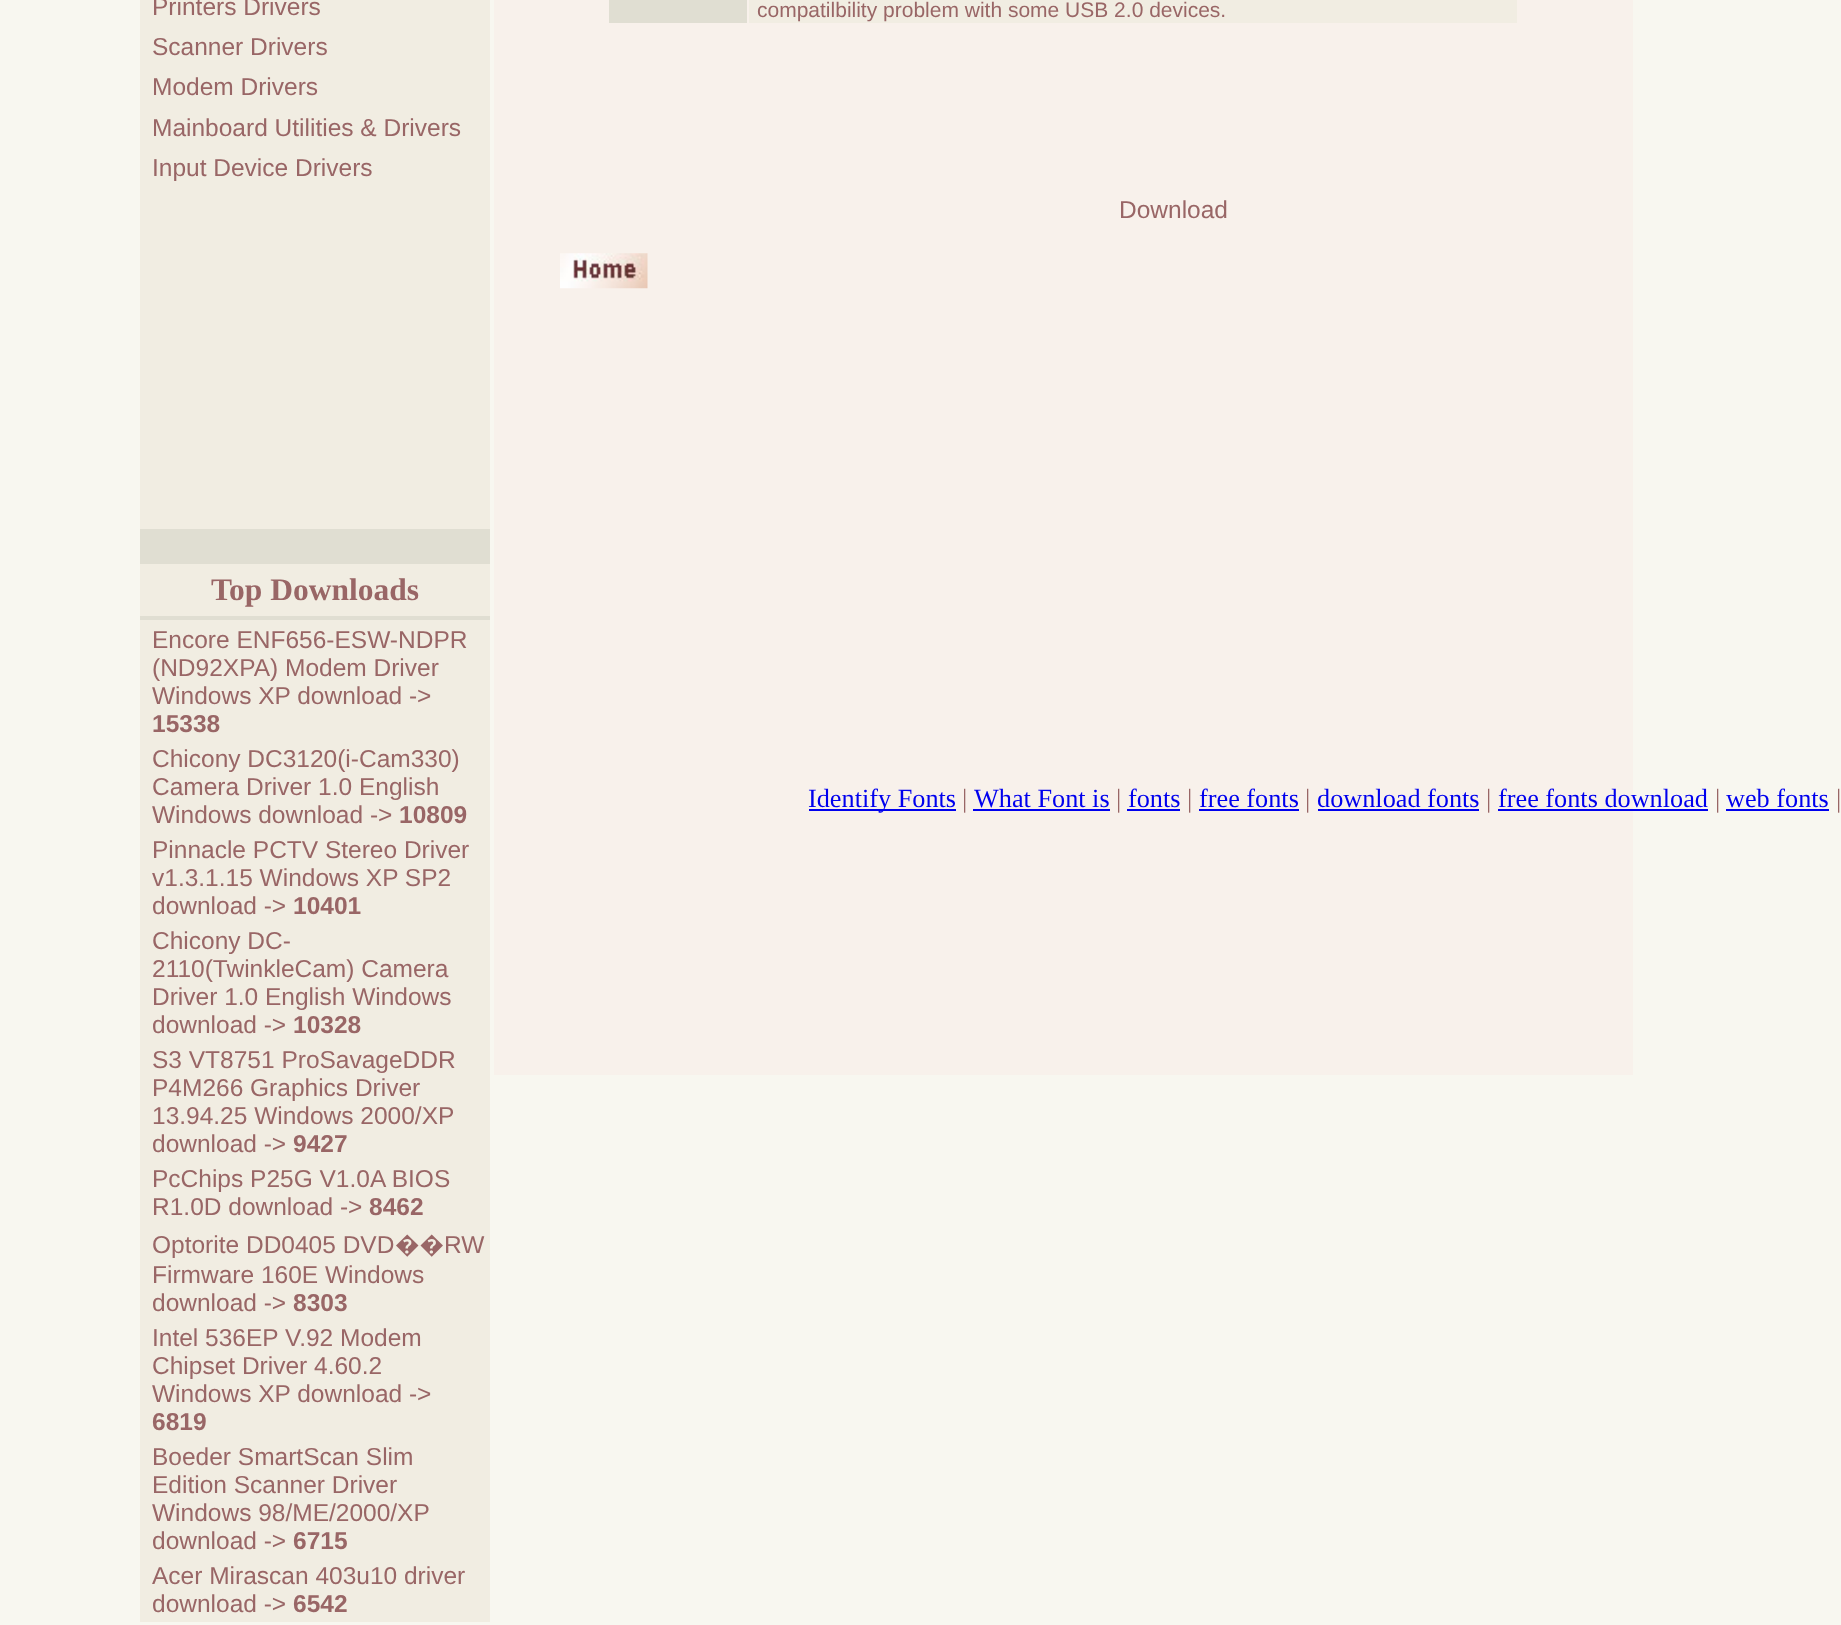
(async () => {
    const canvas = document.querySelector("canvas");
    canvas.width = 1841;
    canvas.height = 1625;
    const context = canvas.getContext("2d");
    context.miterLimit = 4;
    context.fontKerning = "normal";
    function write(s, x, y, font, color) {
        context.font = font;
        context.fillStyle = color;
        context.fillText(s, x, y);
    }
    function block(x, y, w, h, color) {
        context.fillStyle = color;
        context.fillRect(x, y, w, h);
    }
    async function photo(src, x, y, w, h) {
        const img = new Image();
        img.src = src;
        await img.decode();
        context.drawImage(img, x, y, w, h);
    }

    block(0, 0, 1841, 1625, "rgb(248, 247, 240)");
    block(140, 529, 350, 91, "rgb(224, 222, 210)");
    block(140, 0, 350, 529, "rgb(241, 237, 226)");
    write("Printers Drivers", 152, 15, "24.5px Liberation Sans", "rgb(153, 102, 102)");
    write("Scanner Drivers", 152, 55, "24.5px Liberation Sans", "rgb(153, 102, 102)");
    write("Modem Drivers", 152, 95, "24.5px Liberation Sans", "rgb(153, 102, 102)");
    write("Mainboard Utilities & Drivers", 152, 136, "24.5px Liberation Sans", "rgb(153, 102, 102)");
    write("Input Device Drivers", 152, 176, "24.5px Liberation Sans", "rgb(153, 102, 102)");
    block(140, 564, 350, 52, "rgb(241, 237, 226)");
    write("Top Downloads", 211, 600, "bold 31.5px Liberation Serif", "rgb(153, 102, 102)");
    block(140, 620, 350, 1002, "rgb(241, 237, 226)");
    write("Encore ENF656-ESW-NDPR", 152, 648, "24.5px Liberation Sans", "rgb(153, 102, 102)");
    write("(ND92XPA) Modem Driver", 152, 676, "24.5px Liberation Sans", "rgb(153, 102, 102)");
    write("Windows XP download ->", 152, 704, "24.5px Liberation Sans", "rgb(153, 102, 102)");
    write("15338", 152, 732, "bold 24.5px Liberation Sans", "rgb(153, 102, 102)");
    write("Chicony DC3120(i-Cam330)", 152, 767, "24.5px Liberation Sans", "rgb(153, 102, 102)");
    write("Camera Driver 1.0 English", 152, 795, "24.5px Liberation Sans", "rgb(153, 102, 102)");
    write("Windows download ->", 152, 823, "24.5px Liberation Sans", "rgb(153, 102, 102)");
    write("10809", 399, 823, "bold 24.5px Liberation Sans", "rgb(153, 102, 102)");
    write("Pinnacle PCTV Stereo Driver", 152, 858, "24.5px Liberation Sans", "rgb(153, 102, 102)");
    write("v1.3.1.15 Windows XP SP2", 152, 886, "24.5px Liberation Sans", "rgb(153, 102, 102)");
    write("download ->", 152, 914, "24.5px Liberation Sans", "rgb(153, 102, 102)");
    write("10401", 293, 914, "bold 24.5px Liberation Sans", "rgb(153, 102, 102)");
    write("Chicony DC-", 152, 949, "24.5px Liberation Sans", "rgb(153, 102, 102)");
    write("2110(TwinkleCam) Camera", 152, 977, "24.5px Liberation Sans", "rgb(153, 102, 102)");
    write("Driver 1.0 English Windows", 152, 1005, "24.5px Liberation Sans", "rgb(153, 102, 102)");
    write("download ->", 152, 1033, "24.5px Liberation Sans", "rgb(153, 102, 102)");
    write("10328", 293, 1033, "bold 24.5px Liberation Sans", "rgb(153, 102, 102)");
    write("S3 VT8751 ProSavageDDR", 152, 1068, "24.5px Liberation Sans", "rgb(153, 102, 102)");
    write("P4M266 Graphics Driver", 152, 1096, "24.5px Liberation Sans", "rgb(153, 102, 102)");
    write("13.94.25 Windows 2000/XP", 152, 1124, "24.5px Liberation Sans", "rgb(153, 102, 102)");
    write("download ->", 152, 1152, "24.5px Liberation Sans", "rgb(153, 102, 102)");
    write("9427", 293, 1152, "bold 24.5px Liberation Sans", "rgb(153, 102, 102)");
    write("PcChips P25G V1.0A BIOS", 152, 1187, "24.5px Liberation Sans", "rgb(153, 102, 102)");
    write("R1.0D download ->", 152, 1215, "24.5px Liberation Sans", "rgb(153, 102, 102)");
    write("8462", 369, 1215, "bold 24.5px Liberation Sans", "rgb(153, 102, 102)");
    write("Optorite DD0405 DVD", 152, 1253, "24.5px Liberation Sans", "rgb(153, 102, 102)");
    write("��", 395, 1253, "24.5px Noto Sans", "rgb(153, 102, 102)");
    write("RW", 444, 1253, "24.5px Liberation Sans", "rgb(153, 102, 102)");
    write("Firmware 160E Windows", 152, 1283, "24.5px Liberation Sans", "rgb(153, 102, 102)");
    write("download ->", 152, 1311, "24.5px Liberation Sans", "rgb(153, 102, 102)");
    write("8303", 293, 1311, "bold 24.5px Liberation Sans", "rgb(153, 102, 102)");
    write("Intel 536EP V.92 Modem", 152, 1346, "24.5px Liberation Sans", "rgb(153, 102, 102)");
    write("Chipset Driver 4.60.2", 152, 1374, "24.5px Liberation Sans", "rgb(153, 102, 102)");
    write("Windows XP download ->", 152, 1402, "24.5px Liberation Sans", "rgb(153, 102, 102)");
    write("6819", 152, 1430, "bold 24.5px Liberation Sans", "rgb(153, 102, 102)");
    write("Boeder SmartScan Slim", 152, 1465, "24.5px Liberation Sans", "rgb(153, 102, 102)");
    write("Edition Scanner Driver", 152, 1493, "24.5px Liberation Sans", "rgb(153, 102, 102)");
    write("Windows 98/ME/2000/XP", 152, 1521, "24.5px Liberation Sans", "rgb(153, 102, 102)");
    write("download ->", 152, 1549, "24.5px Liberation Sans", "rgb(153, 102, 102)");
    write("6715", 293, 1549, "bold 24.5px Liberation Sans", "rgb(153, 102, 102)");
    write("Acer Mirascan 403u10 driver", 152, 1584, "24.5px Liberation Sans", "rgb(153, 102, 102)");
    write("download ->", 152, 1612, "24.5px Liberation Sans", "rgb(153, 102, 102)");
    write("6542", 293, 1612, "bold 24.5px Liberation Sans", "rgb(153, 102, 102)");
    block(494, 0, 1139, 1075, "rgb(248, 241, 235)");
    block(609, 0, 138, 23, "rgb(224, 222, 210)");
    block(749, 0, 768, 23, "rgb(241, 237, 226)");
    write("compatilbility problem with some USB 2.0 devices.", 757, 17, "21px Liberation Sans", "rgb(153, 102, 102)");
    write("Download", 1119, 218, "24.5px Liberation Sans", "rgb(153, 102, 102)");
    await photo("media/1.png", 560, 253, 88, 36);
    block(809, 809, 147, 2, "rgb(0, 0, 238)");
    write("Identify Fonts", 808, 807, "26.25px Liberation Serif", "rgb(0, 0, 238)");
    write("|", 962, 807, "26.25px Liberation Serif", "rgb(153, 102, 102)");
    write("What Font is", 974, 807, "26.25px Liberation Serif", "rgb(0, 0, 238)");
    block(973, 809, 137, 2, "rgb(0, 0, 238)");
    write("|", 1116, 807, "26.25px Liberation Serif", "rgb(153, 102, 102)");
    write("fonts", 1128, 807, "26.25px Liberation Serif", "rgb(0, 0, 238)");
    block(1127, 809, 53, 2, "rgb(0, 0, 238)");
    write("|", 1187, 807, "26.25px Liberation Serif", "rgb(153, 102, 102)");
    write("free fonts", 1199, 807, "26.25px Liberation Serif", "rgb(0, 0, 238)");
    block(1199, 809, 100, 2, "rgb(0, 0, 238)");
    write("|", 1305, 807, "26.25px Liberation Serif", "rgb(153, 102, 102)");
    write("download fonts", 1317, 807, "26.25px Liberation Serif", "rgb(0, 0, 238)");
    block(1318, 809, 161, 2, "rgb(0, 0, 238)");
    write("|", 1486, 807, "26.25px Liberation Serif", "rgb(153, 102, 102)");
    write("free fonts download", 1498, 807, "26.25px Liberation Serif", "rgb(0, 0, 238)");
    block(1498, 809, 210, 2, "rgb(0, 0, 238)");
    write("|", 1715, 807, "26.25px Liberation Serif", "rgb(153, 102, 102)");
    write("web fonts", 1726, 807, "26.25px Liberation Serif", "rgb(0, 0, 238)");
    block(1726, 809, 103, 2, "rgb(0, 0, 238)");
    write("|", 1836, 807, "26.25px Liberation Serif", "rgb(153, 102, 102)");
})();
